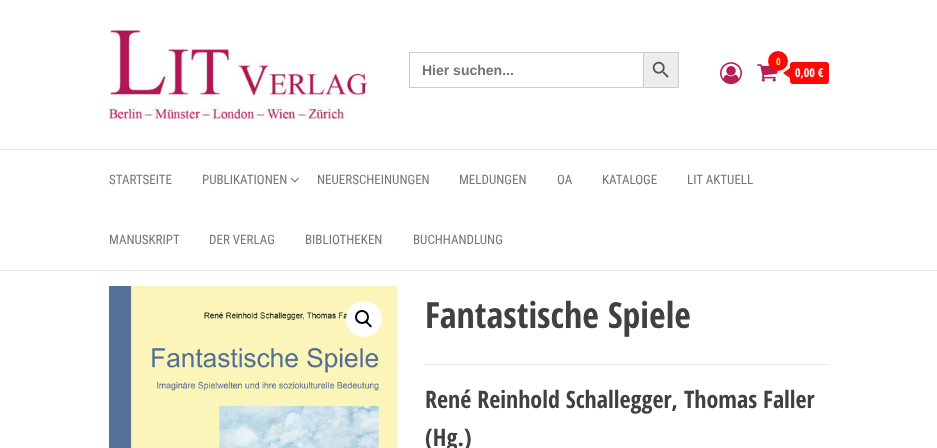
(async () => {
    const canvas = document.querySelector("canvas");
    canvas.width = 937;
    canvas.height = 448;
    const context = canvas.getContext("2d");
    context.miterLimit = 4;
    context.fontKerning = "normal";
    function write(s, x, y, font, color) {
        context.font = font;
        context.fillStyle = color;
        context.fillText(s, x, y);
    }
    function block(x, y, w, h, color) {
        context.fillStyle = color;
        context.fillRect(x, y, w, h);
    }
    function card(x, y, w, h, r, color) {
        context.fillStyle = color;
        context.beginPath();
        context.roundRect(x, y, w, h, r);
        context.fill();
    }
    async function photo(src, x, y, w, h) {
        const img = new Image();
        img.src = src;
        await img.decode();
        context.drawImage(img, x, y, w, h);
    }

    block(0, 0, 937, 448, "rgb(255, 255, 255)");
    await photo("media/1.png", 109, 30, 259, 89);
    block(409, 52, 234, 1, "rgb(204, 204, 204)");
    block(409, 87, 234, 1, "rgb(204, 204, 204)");
    block(409, 52, 1, 36, "rgb(204, 204, 204)");
    write("Hier suchen...", 422, 75, "bold 14px Liberation Sans", "rgb(117, 117, 117)");
    context.fillStyle = "rgb(237, 237, 237)";
    context.beginPath();
    context.rect(643.5, 52.5, 35, 35);
    context.fill();
    context.strokeStyle = "rgb(204, 204, 204)";
    context.stroke();
    await photo("media/2.png", 652, 61, 17, 17);
    await photo("media/3.png", 720, 62, 22, 23);
    await photo("media/4.png", 757, 64, 21, 18);
    context.fillStyle = "rgb(255, 7, 7)";
    context.beginPath();
    context.arc(778, 61, 10, 0, Math.PI * 2);
    context.fill();
    write("0", 776, 65, "bold 10px Open Sans Condensed", "rgb(237, 237, 101)");
    card(790, 62, 39, 22, 3, "rgb(255, 7, 7)");
    context.beginPath();
    context.moveTo(790, 68);
    context.lineTo(790, 78);
    context.lineTo(783, 73);
    context.closePath();
    context.fill();
    write("0,00 €", 795, 77, "bold 12px Open Sans Condensed", "rgb(255, 255, 255)");
    block(0, 149, 937, 1, "rgb(226, 226, 226)");
    block(0, 270, 937, 1, "rgb(226, 226, 226)");
    write("STARTSEITE", 109, 184, "13px Roboto Condensed", "rgb(117, 117, 117)");
    write("PUBLIKATIONEN", 202, 184, "13px Roboto Condensed", "rgb(117, 117, 117)");
    await photo("media/5.png", 290, 177, 9, 6);
    write("NEUERSCHEINUNGEN", 317, 184, "13px Roboto Condensed", "rgb(117, 117, 117)");
    write("MELDUNGEN", 459, 184, "13px Roboto Condensed", "rgb(117, 117, 117)");
    write("OA", 557, 184, "13px Roboto Condensed", "rgb(117, 117, 117)");
    write("KATALOGE", 602, 184, "13px Roboto Condensed", "rgb(117, 117, 117)");
    write("LIT AKTUELL", 687, 184, "13px Roboto Condensed", "rgb(117, 117, 117)");
    write("MANUSKRIPT", 109, 244, "13px Roboto Condensed", "rgb(117, 117, 117)");
    write("DER VERLAG", 209, 244, "13px Roboto Condensed", "rgb(117, 117, 117)");
    write("BIBLIOTHEKEN", 305, 244, "13px Roboto Condensed", "rgb(117, 117, 117)");
    write("BUCHHANDLUNG", 413, 244, "13px Roboto Condensed", "rgb(117, 117, 117)");
    await photo("media/6.png", 109, 286, 288, 162);
    context.fillStyle = "rgb(255, 255, 255)";
    context.beginPath();
    context.arc(364, 319, 18, 0, Math.PI * 2);
    context.fill();
    context.beginPath();
    context.arc(362, 317, 6, 0, Math.PI * 2);
    context.strokeStyle = "rgb(0, 0, 0)";
    context.lineWidth = 2;
    context.stroke();
    context.fillStyle = "rgb(0, 0, 0)";
    context.beginPath();
    context.moveTo(365.5, 321);
    context.bezierCurveTo(367, 320, 368.5, 322.5, 369, 323.5);
    context.bezierCurveTo(370, 324, 372.5, 325.5, 371.5, 327);
    context.bezierCurveTo(370, 328, 368.5, 325.5, 368, 324.5);
    context.bezierCurveTo(367, 324, 364.5, 322.5, 365.5, 321);
    context.closePath();
    context.fill();
    block(425, 364, 404, 1, "rgb(234, 234, 234)");
    write("Fantastische Spiele", 425, 328, "bold 36px Open Sans Condensed", "rgb(64, 64, 64)");
    write("René Reinhold Schallegger, Thomas Faller", 425, 408, "bold 24px Open Sans Condensed", "rgb(64, 64, 64)");
    write("(Hg.)", 425, 446, "bold 24px Open Sans Condensed", "rgb(64, 64, 64)");
})();
